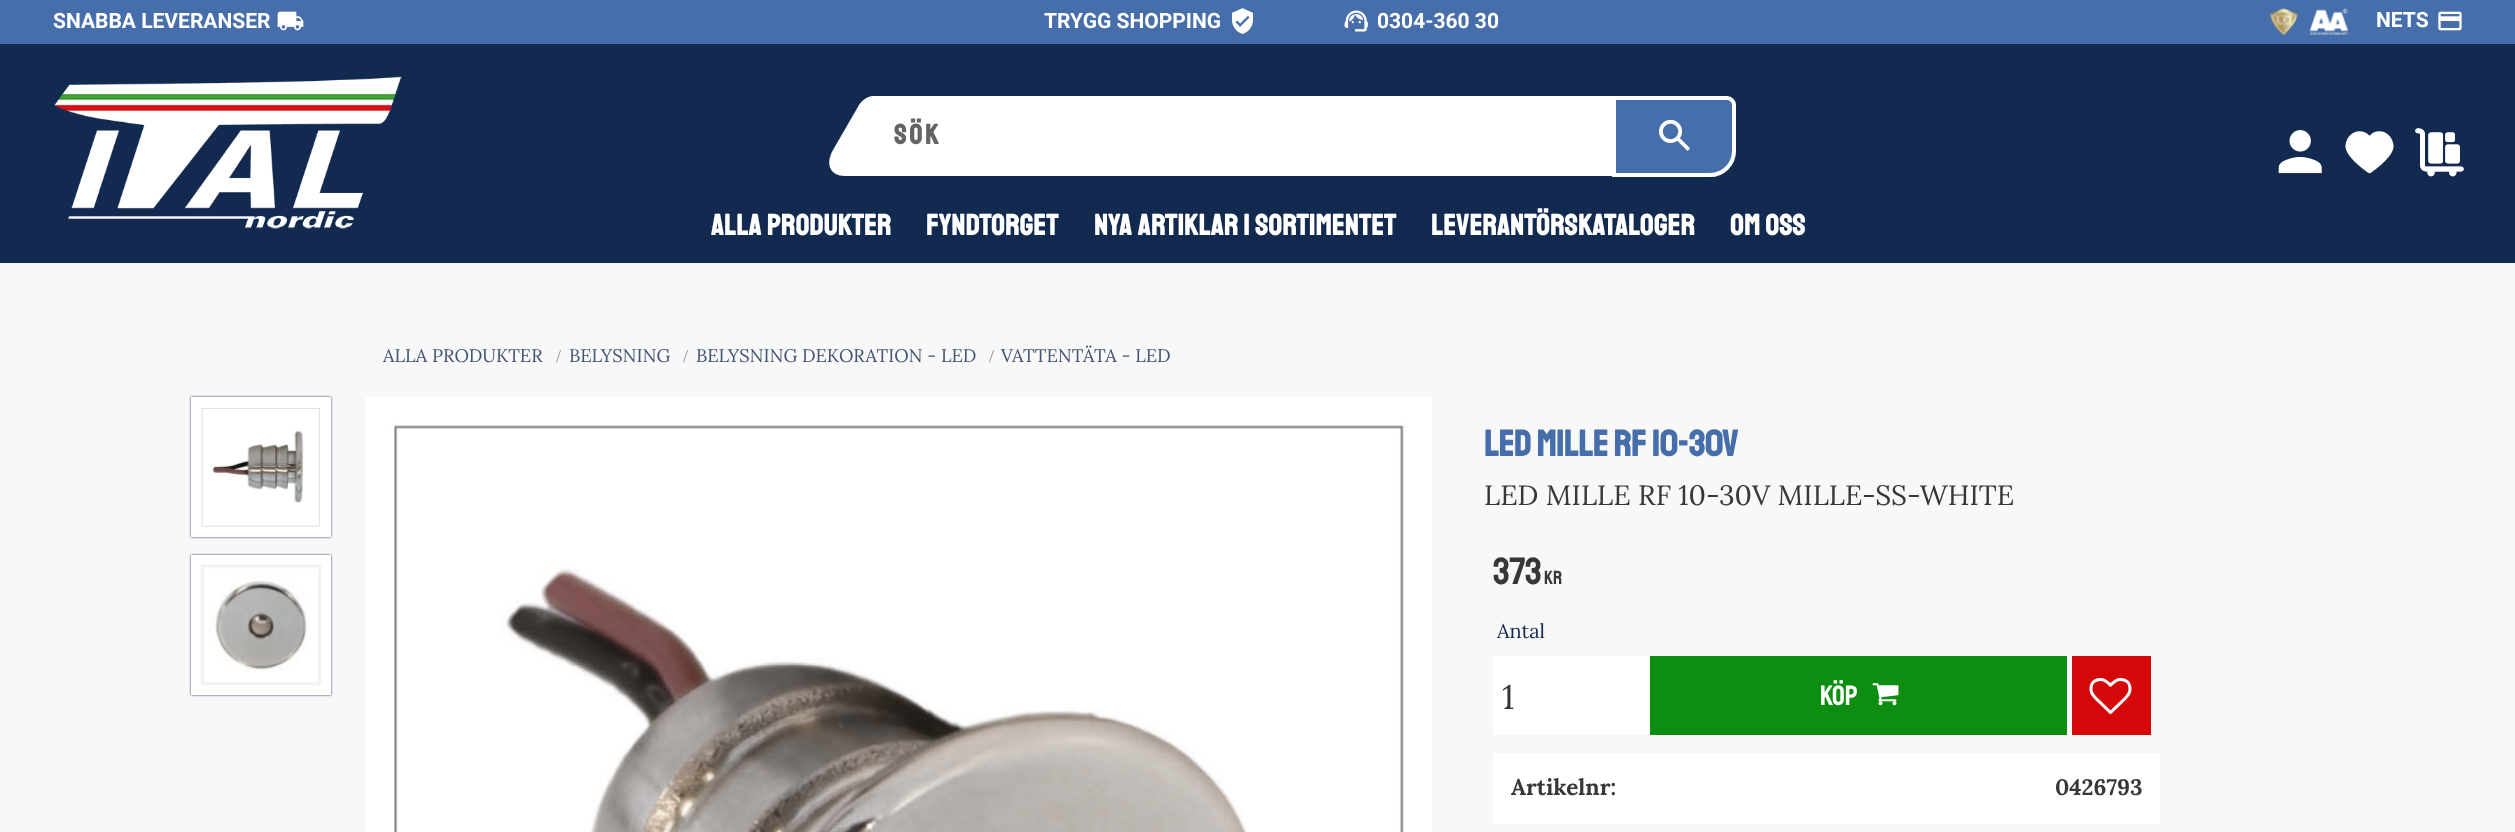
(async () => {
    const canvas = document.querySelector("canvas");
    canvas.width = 2515;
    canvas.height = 832;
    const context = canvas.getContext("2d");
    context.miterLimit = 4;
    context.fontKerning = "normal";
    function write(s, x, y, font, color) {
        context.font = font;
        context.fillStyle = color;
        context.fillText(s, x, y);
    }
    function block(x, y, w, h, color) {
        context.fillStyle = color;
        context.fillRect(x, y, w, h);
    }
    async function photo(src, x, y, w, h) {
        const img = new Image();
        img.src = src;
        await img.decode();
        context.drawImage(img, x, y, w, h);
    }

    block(0, 0, 2515, 832, "rgb(248, 248, 248)");
    block(0, 44, 2515, 219, "rgb(19, 42, 80)");
    block(0, 0, 2515, 44, "rgb(70, 110, 170)");
    write("SNABBA LEVERANSER", 53, 28, "bold 21px Roboto", "rgb(255, 255, 255)");
    await photo("media/1.png", 277, 11, 27, 20);
    write("TRYGG SHOPPING", 1044, 28, "bold 21px Roboto", "rgb(255, 255, 255)");
    await photo("media/2.png", 1232, 8, 21, 26);
    await photo("media/3.png", 1344, 10, 24, 22);
    write("0304-360 30", 1377, 28, "bold 21px Roboto", "rgb(255, 255, 255)");
    await photo("media/4.png", 2269, 8, 80, 27);
    write("NETS", 2376, 27, "bold 21px Roboto", "rgb(255, 255, 255)");
    await photo("media/5.png", 2438, 11, 24, 20);
    await photo("media/6.png", 54, 76, 348, 153);
    context.beginPath();
    context.moveTo(873, 96);
    context.lineTo(1666, 96);
    context.lineTo(1620, 176);
    context.lineTo(845, 176);
    context.bezierCurveTo(830, 176, 825, 164, 833, 150);
    context.lineTo(859, 105);
    context.bezierCurveTo(862, 100, 868, 96, 873, 96);
    context.closePath();
    context.fill();
    context.letterSpacing = "3px";
    write("Sök", 894, 144, "bold 28px Staatliches", "rgb(100, 100, 100)");
    context.fillStyle = "rgb(70, 110, 170)";
    context.beginPath();
    context.roundRect(1614, 98, 120, 77, [0, 7, 24, 0]);
    context.fill();
    context.strokeStyle = "rgb(255, 255, 255)";
    context.lineWidth = 4;
    context.stroke();
    await photo("media/7.png", 1659, 119, 31, 32);
    await photo("media/8.png", 2278, 130, 44, 44);
    await photo("media/9.png", 2345, 131, 49, 43);
    await photo("media/10.png", 2415, 128, 49, 49);
    context.letterSpacing = "0.55px";
    write("ALLA PRODUKTER", 711, 235, "bold 29.4px Staatliches", "rgb(255, 255, 255)");
    write("FYNDTORGET", 926, 235, "bold 29.4px Staatliches", "rgb(255, 255, 255)");
    write("NYA ARTIKLAR I SORTIMENTET", 1094, 235, "bold 29.4px Staatliches", "rgb(255, 255, 255)");
    write("LEVERANTÖRSKATALOGER", 1431, 235, "bold 29.4px Staatliches", "rgb(255, 255, 255)");
    write("OM OSS", 1730, 235, "bold 29.4px Staatliches", "rgb(255, 255, 255)");
    context.letterSpacing = "0px";
    write("ALLA PRODUKTER", 383, 362, "18.25px Lora", "rgb(65, 84, 114)");
    write("/", 556, 362, "18.25px Liberation Serif", "rgb(138, 150, 167)");
    write("BELYSNING", 569, 362, "18.25px Lora", "rgb(65, 84, 114)");
    write("/", 683, 362, "18.25px Liberation Serif", "rgb(138, 150, 167)");
    write("BELYSNING DEKORATION - LED", 696, 362, "18.25px Lora", "rgb(65, 84, 114)");
    write("/", 989, 362, "18.25px Liberation Serif", "rgb(138, 150, 167)");
    write("VATTENTÄTA - LED", 1001, 362, "18.25px Lora", "rgb(65, 84, 114)");
    write("LED MILLE RF 10-30V", 1484, 456, "bold 36.5px Staatliches", "rgb(70, 110, 170)");
    write("LED MILLE RF 10-30V MILLE-SS-WHITE", 1484, 505, "28px Lora", "rgb(55, 55, 55)");
    context.fillStyle = "rgb(19, 43, 80)";
    context.filter = "blur(1px)";
    context.beginPath();
    context.rect(191, 397, 140, 140);
    context.fill();
    context.filter = "none";
    block(191, 397, 140, 140, "rgb(255, 255, 255)");
    await photo("media/11.png", 201, 408, 119, 119);
    context.fillStyle = "rgb(19, 43, 80)";
    context.filter = "blur(1px)";
    context.beginPath();
    context.rect(191, 555, 140, 140);
    context.fill();
    context.filter = "none";
    block(191, 555, 140, 140, "rgb(255, 255, 255)");
    await photo("media/12.png", 200, 564, 122, 122);
    block(366, 397, 1066, 435, "rgb(255, 255, 255)");
    await photo("media/13.png", 391, 423, 1015, 409);
    write("373", 1493, 584, "38px Staatliches", "rgb(55, 55, 55)");
    write("KR", 1544, 584, "19px Staatliches", "rgb(55, 55, 55)");
    write("Antal", 1497, 638, "20px Lora", "rgb(19, 43, 80)");
    block(1493, 656, 157, 79, "rgb(255, 255, 255)");
    write("1", 1502, 709, "34px Lora", "rgb(55, 55, 55)");
    block(1650, 656, 417, 79, "rgb(14, 142, 16)");
    write("KÖP", 1820, 705, "28px Staatliches", "rgb(255, 255, 255)");
    await photo("media/14.png", 1872, 683, 27, 23);
    block(2072, 656, 79, 79, "rgb(213, 8, 9)");
    await photo("media/15.png", 2089, 678, 43, 36);
    block(1493, 753, 667, 71, "rgb(255, 255, 255)");
    write("Artikelnr:", 1511, 795, "bold 22.5px Lora", "rgb(55, 55, 55)");
    write("0426793", 2055, 795, "bold 22.5px Lora", "rgb(55, 55, 55)");
})();
